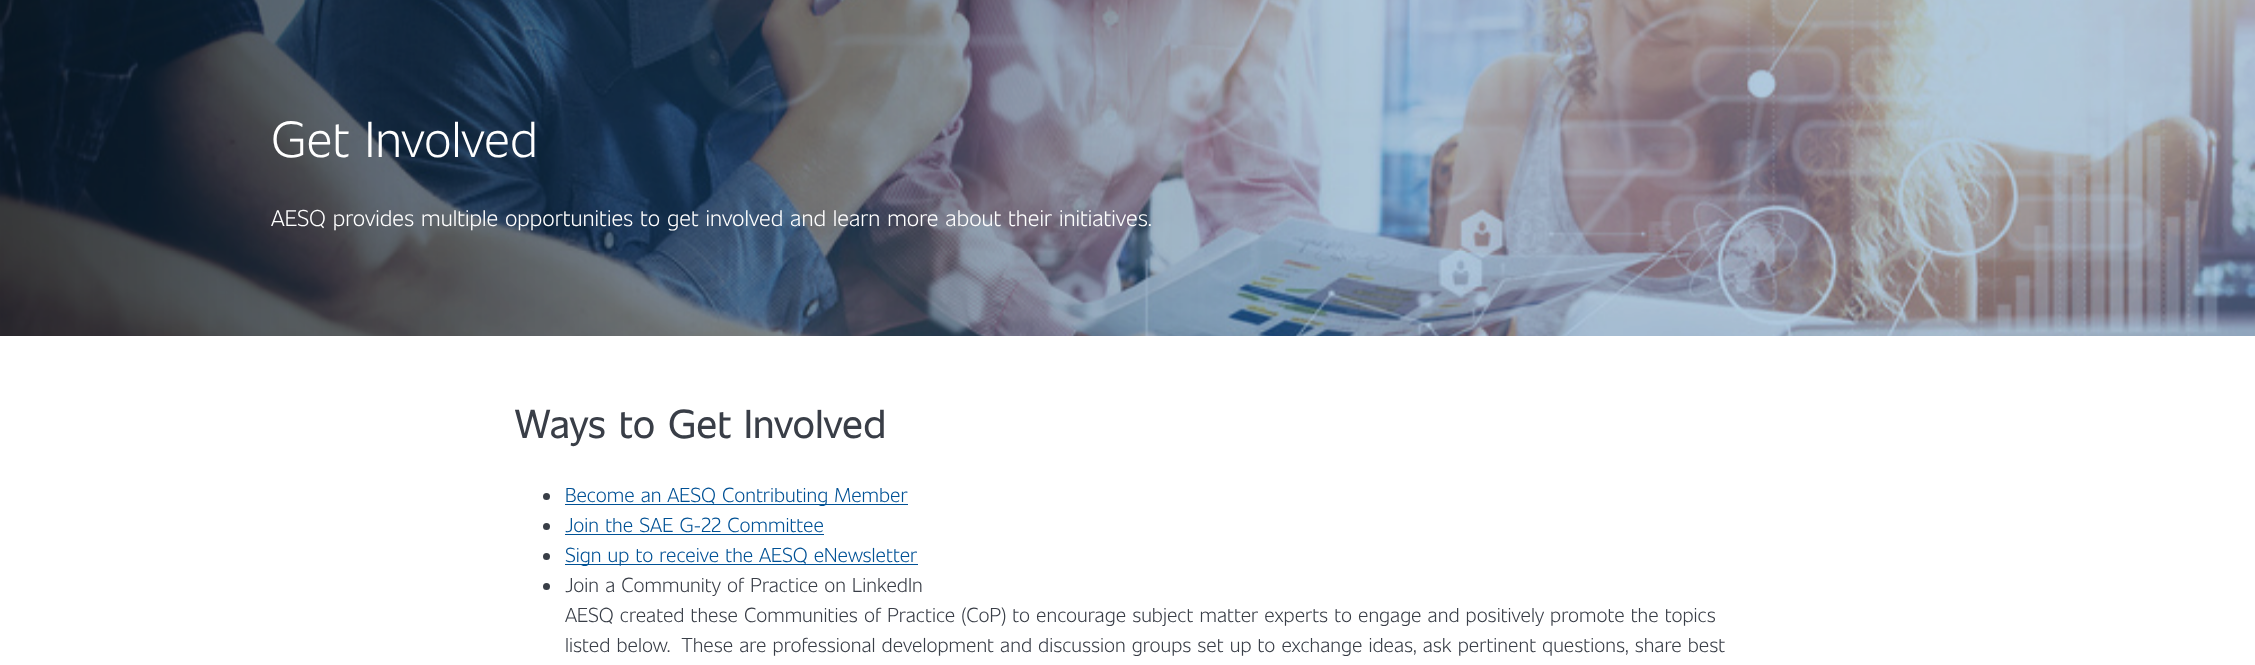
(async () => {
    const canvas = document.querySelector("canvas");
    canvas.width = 2255;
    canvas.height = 665;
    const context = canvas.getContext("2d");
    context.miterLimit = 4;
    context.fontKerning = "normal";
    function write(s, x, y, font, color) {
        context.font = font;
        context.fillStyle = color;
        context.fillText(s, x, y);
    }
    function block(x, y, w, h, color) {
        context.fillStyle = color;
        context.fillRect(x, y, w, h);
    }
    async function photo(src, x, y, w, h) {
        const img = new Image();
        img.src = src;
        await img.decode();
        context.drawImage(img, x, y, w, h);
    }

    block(0, 0, 2255, 665, "rgb(255, 255, 255)");
    await photo("media/1.png", 0, 0, 2255, 336);
    write("Get Involved", 271, 157, "300 50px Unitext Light", "rgb(255, 255, 255)");
    write("AESQ provides multiple opportunities to get involved and learn more about their initiatives.", 271, 226, "300 22.5px Unitext Light", "rgb(255, 255, 255)");
    write("Ways to Get Involved", 515, 438, "40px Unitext", "rgb(57, 62, 71)");
    context.beginPath();
    context.arc(546.5, 496.5, 3.5, 0, Math.PI * 2);
    context.fill();
    block(565, 504, 343, 1, "rgb(0, 81, 149)");
    write("Become an AESQ Contributing Member", 565, 502, "300 20px Unitext Light", "rgb(0, 81, 149)");
    context.fillStyle = "rgb(57, 62, 71)";
    context.beginPath();
    context.arc(546.5, 526.5, 3.5, 0, Math.PI * 2);
    context.fill();
    write("Join the SAE G-22 Committee", 565, 532, "300 20px Unitext Light", "rgb(0, 81, 149)");
    block(565, 534, 259, 1, "rgb(0, 81, 149)");
    context.fillStyle = "rgb(57, 62, 71)";
    context.beginPath();
    context.arc(546.5, 556.5, 3.5, 0, Math.PI * 2);
    context.fill();
    block(565, 564, 353, 1, "rgb(0, 81, 149)");
    write("Sign up to receive the AESQ eNewsletter", 565, 562, "300 20px Unitext Light", "rgb(0, 81, 149)");
    context.fillStyle = "rgb(57, 62, 71)";
    context.beginPath();
    context.arc(546.5, 586.5, 3.5, 0, Math.PI * 2);
    context.fill();
    write("Join a Community of Practice on LinkedIn", 565, 592, "300 20px Unitext Light", "rgb(57, 62, 71)");
    write("AESQ created these Communities of Practice (CoP) to encourage subject matter experts to engage and positively promote the topics", 565, 622, "300 20px Unitext Light", "rgb(57, 62, 71)");
    write("listed below.  These are professional development and discussion groups set up to exchange ideas, ask pertinent questions, share best", 565, 652, "300 20px Unitext Light", "rgb(57, 62, 71)");
})();
